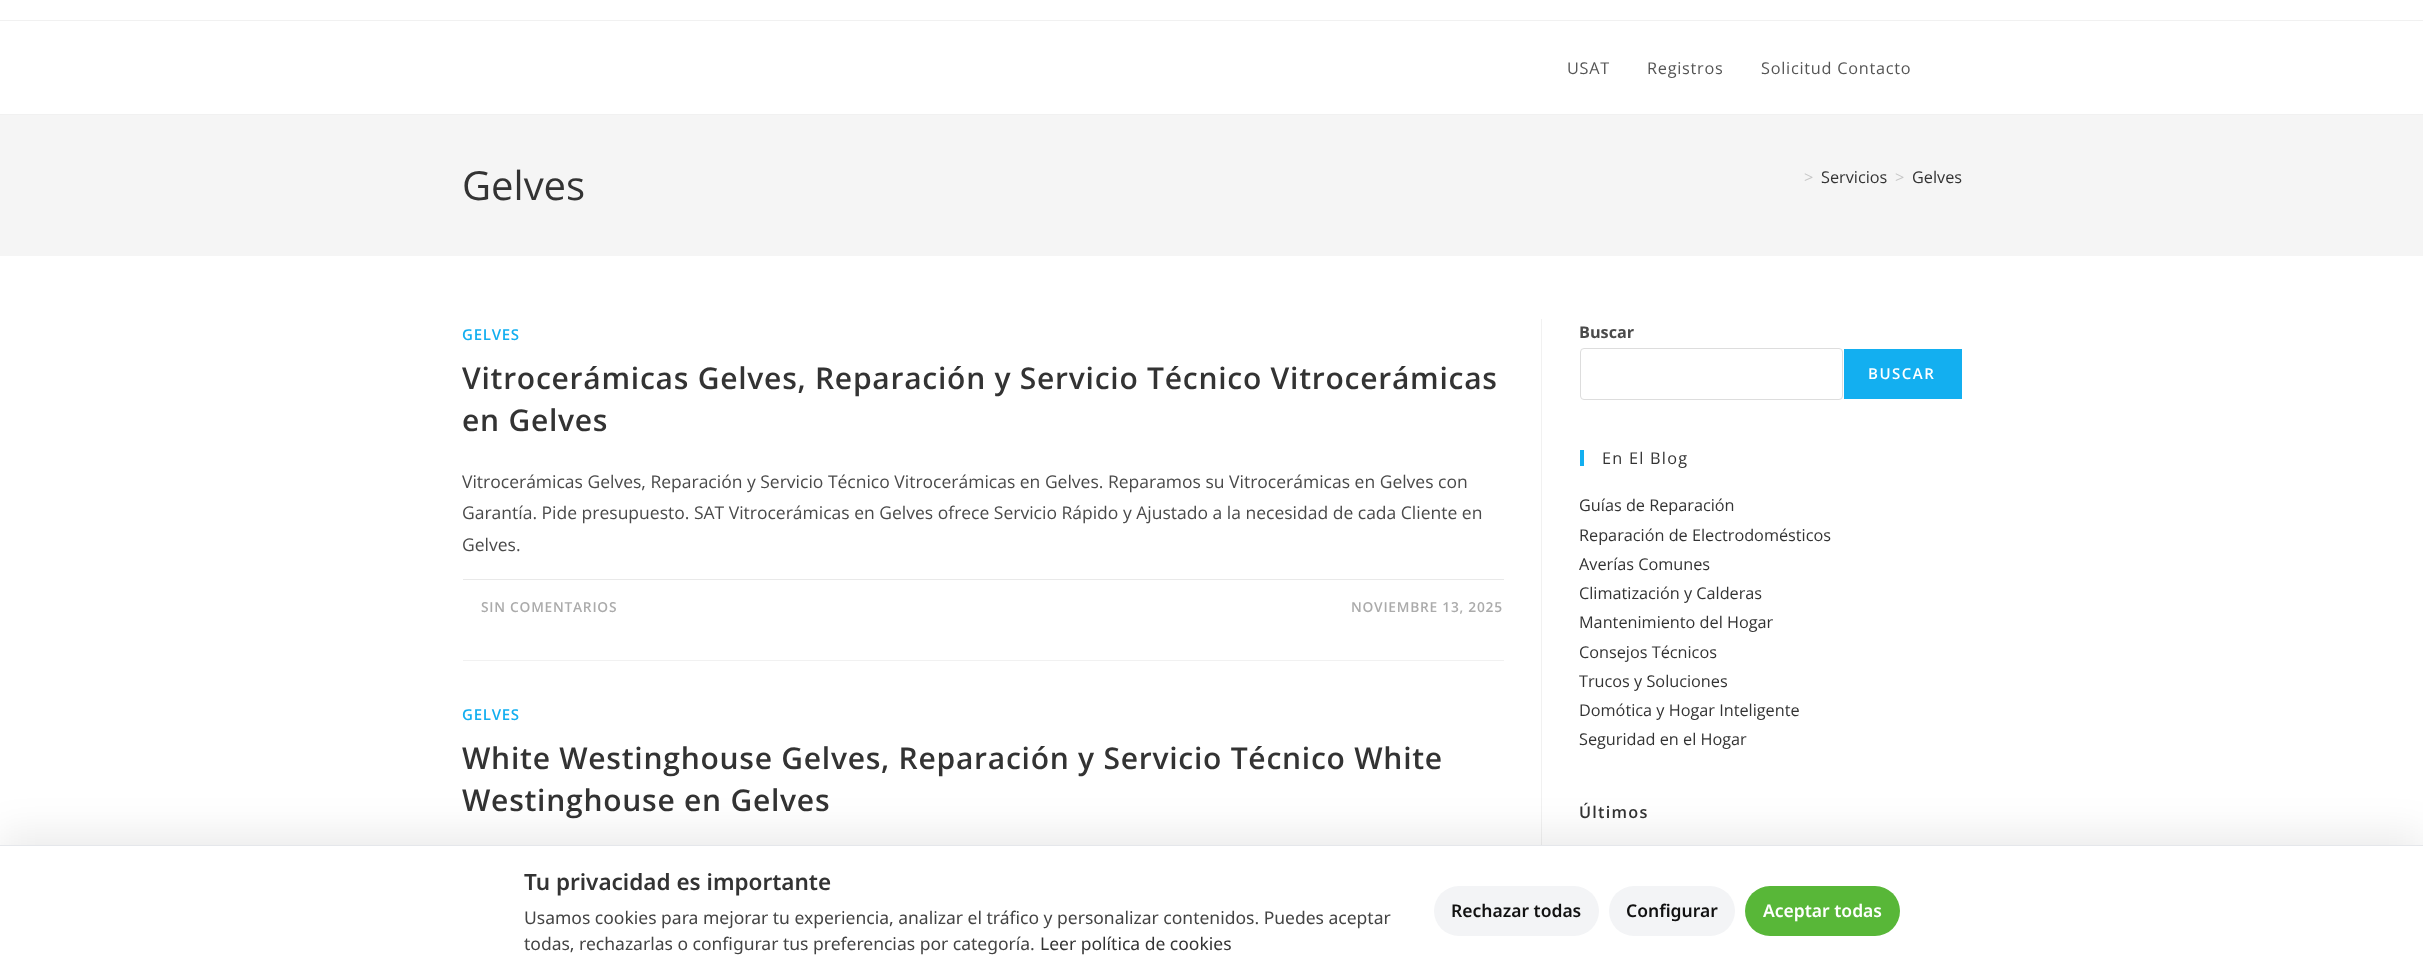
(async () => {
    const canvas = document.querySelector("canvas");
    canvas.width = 2423;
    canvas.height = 976;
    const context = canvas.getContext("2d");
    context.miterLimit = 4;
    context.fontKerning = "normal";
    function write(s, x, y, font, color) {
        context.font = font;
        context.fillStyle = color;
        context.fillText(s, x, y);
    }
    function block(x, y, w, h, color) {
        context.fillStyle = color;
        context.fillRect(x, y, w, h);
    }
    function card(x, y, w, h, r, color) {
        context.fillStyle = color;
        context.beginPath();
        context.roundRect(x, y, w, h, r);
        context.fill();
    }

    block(0, 0, 2423, 976, "rgb(255, 255, 255)");
    block(0, 20, 2423, 1, "rgb(241, 241, 241)");
    block(0, 114, 2423, 1, "rgb(241, 241, 241)");
    context.letterSpacing = "0.75px";
    write("USAT", 1567, 74, "16.25px Open Sans", "rgb(85, 85, 85)");
    write("Registros", 1647, 74, "16.25px Open Sans", "rgb(85, 85, 85)");
    write("Solicitud Contacto", 1761, 74, "16.25px Open Sans", "rgb(85, 85, 85)");
    block(0, 115, 2423, 141, "rgb(245, 245, 245)");
    context.letterSpacing = "0px";
    write("Gelves", 462, 200, "40px Open Sans", "rgb(51, 51, 51)");
    write(">", 1804, 183, "16.25px Open Sans", "rgb(198, 198, 198)");
    write("Servicios", 1821, 183, "16.25px Open Sans", "rgb(51, 51, 51)");
    write(">", 1895, 183, "16.25px Open Sans", "rgb(198, 198, 198)");
    write("Gelves", 1912, 183, "16.25px Open Sans", "rgb(51, 51, 51)");
    block(1541, 319, 1, 526, "rgb(241, 241, 241)");
    block(463, 660, 1041, 1, "rgb(241, 241, 241)");
    context.letterSpacing = "0.75px";
    write("GELVES", 462, 340, "600 15px Open Sans", "rgb(19, 175, 240)");
    write("Vitrocerámicas Gelves, Reparación y Servicio Técnico Vitrocerámicas", 462, 389, "600 30px Open Sans", "rgb(51, 51, 51)");
    write("en Gelves", 462, 431, "600 30px Open Sans", "rgb(51, 51, 51)");
    context.letterSpacing = "0px";
    write("Vitrocerámicas Gelves, Reparación y Servicio Técnico Vitrocerámicas en Gelves. Reparamos su Vitrocerámicas en Gelves con", 462, 488, "17.5px Open Sans", "rgb(74, 74, 74)");
    write("Garantía. Pide presupuesto. SAT Vitrocerámicas en Gelves ofrece Servicio Rápido y Ajustado a la necesidad de cada Cliente en", 462, 519, "17.5px Open Sans", "rgb(74, 74, 74)");
    write("Gelves.", 462, 551, "17.5px Open Sans", "rgb(74, 74, 74)");
    block(463, 579, 1041, 1, "rgb(233, 233, 233)");
    context.letterSpacing = "0.75px";
    write("SIN COMENTARIOS", 481, 612, "600 13.75px Open Sans", "rgb(171, 171, 171)");
    write("NOVIEMBRE 13, 2025", 1351, 612, "600 13.75px Open Sans", "rgb(171, 171, 171)");
    write("GELVES", 462, 720, "600 15px Open Sans", "rgb(19, 175, 240)");
    write("White Westinghouse Gelves, Reparación y Servicio Técnico White", 462, 769, "600 30px Open Sans", "rgb(51, 51, 51)");
    write("Westinghouse en Gelves", 462, 811, "600 30px Open Sans", "rgb(51, 51, 51)");
    context.letterSpacing = "0px";
    write("Buscar", 1579, 338, "bold 16.25px Open Sans", "rgb(74, 74, 74)");
    context.beginPath();
    context.roundRect(1580.5, 348.5, 262, 51, 3.5);
    context.strokeStyle = "rgb(221, 221, 221)";
    context.stroke();
    block(1844, 349, 118, 50, "rgb(19, 175, 240)");
    context.letterSpacing = "1.5px";
    write("BUSCAR", 1868, 379, "600 15px Open Sans", "rgb(255, 255, 255)");
    block(1580, 450, 4, 16, "rgb(19, 175, 240)");
    context.letterSpacing = "1.25px";
    write("En El Blog", 1602, 464, "16.25px Open Sans", "rgb(51, 51, 51)");
    context.letterSpacing = "0px";
    write("Guías de Reparación", 1579, 511, "16.25px Open Sans", "rgb(51, 51, 51)");
    write("Reparación de Electrodomésticos", 1579, 541, "16.25px Open Sans", "rgb(51, 51, 51)");
    write("Averías Comunes", 1579, 570, "16.25px Open Sans", "rgb(51, 51, 51)");
    write("Climatización y Calderas", 1579, 599, "16.25px Open Sans", "rgb(51, 51, 51)");
    write("Mantenimiento del Hogar", 1579, 628, "16.25px Open Sans", "rgb(51, 51, 51)");
    write("Consejos Técnicos", 1579, 658, "16.25px Open Sans", "rgb(51, 51, 51)");
    write("Trucos y Soluciones", 1579, 687, "16.25px Open Sans", "rgb(51, 51, 51)");
    write("Domótica y Hogar Inteligente", 1579, 716, "16.25px Open Sans", "rgb(51, 51, 51)");
    write("Seguridad en el Hogar", 1579, 745, "16.25px Open Sans", "rgb(51, 51, 51)");
    context.letterSpacing = "1.25px";
    write("Últimos", 1579, 818, "600 16.25px Open Sans", "rgb(51, 51, 51)");
    context.fillStyle = "rgba(0, 0, 0, 0.08)";
    context.filter = "blur(19px)";
    context.beginPath();
    context.rect(0, 833, 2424, 131);
    context.fill();
    context.filter = "none";
    block(0, 846, 2423, 130, "rgb(255, 255, 255)");
    block(0, 845, 2423, 1, "rgb(229, 231, 235)");
    context.letterSpacing = "0px";
    write("Tu privacidad es importante", 524, 890, "600 22.5px Noto Sans", "rgb(51, 51, 51)");
    write("Usamos cookies para mejorar tu experiencia, analizar el tráfico y personalizar contenidos. Puedes aceptar", 524, 924, "17.5px Noto Sans", "rgb(68, 68, 68)");
    write("todas, rechazarlas o configurar tus preferencias por categoría.", 524, 950, "17.5px Noto Sans", "rgb(68, 68, 68)");
    write("Leer política de cookies", 1040, 950, "17.5px Noto Sans", "rgb(51, 51, 51)");
    card(1434, 886, 165, 50, 25, "rgb(243, 244, 246)");
    write("Rechazar todas", 1451, 917, "600 17.5px Noto Sans", "rgb(17, 17, 17)");
    card(1609, 886, 126, 50, 25, "rgb(243, 244, 246)");
    write("Configurar", 1626, 917, "600 17.5px Noto Sans", "rgb(17, 17, 17)");
    card(1745, 886, 155, 50, 25, "rgb(88, 183, 56)");
    write("Aceptar todas", 1763, 917, "600 17.5px Noto Sans", "rgb(255, 255, 255)");
})();
